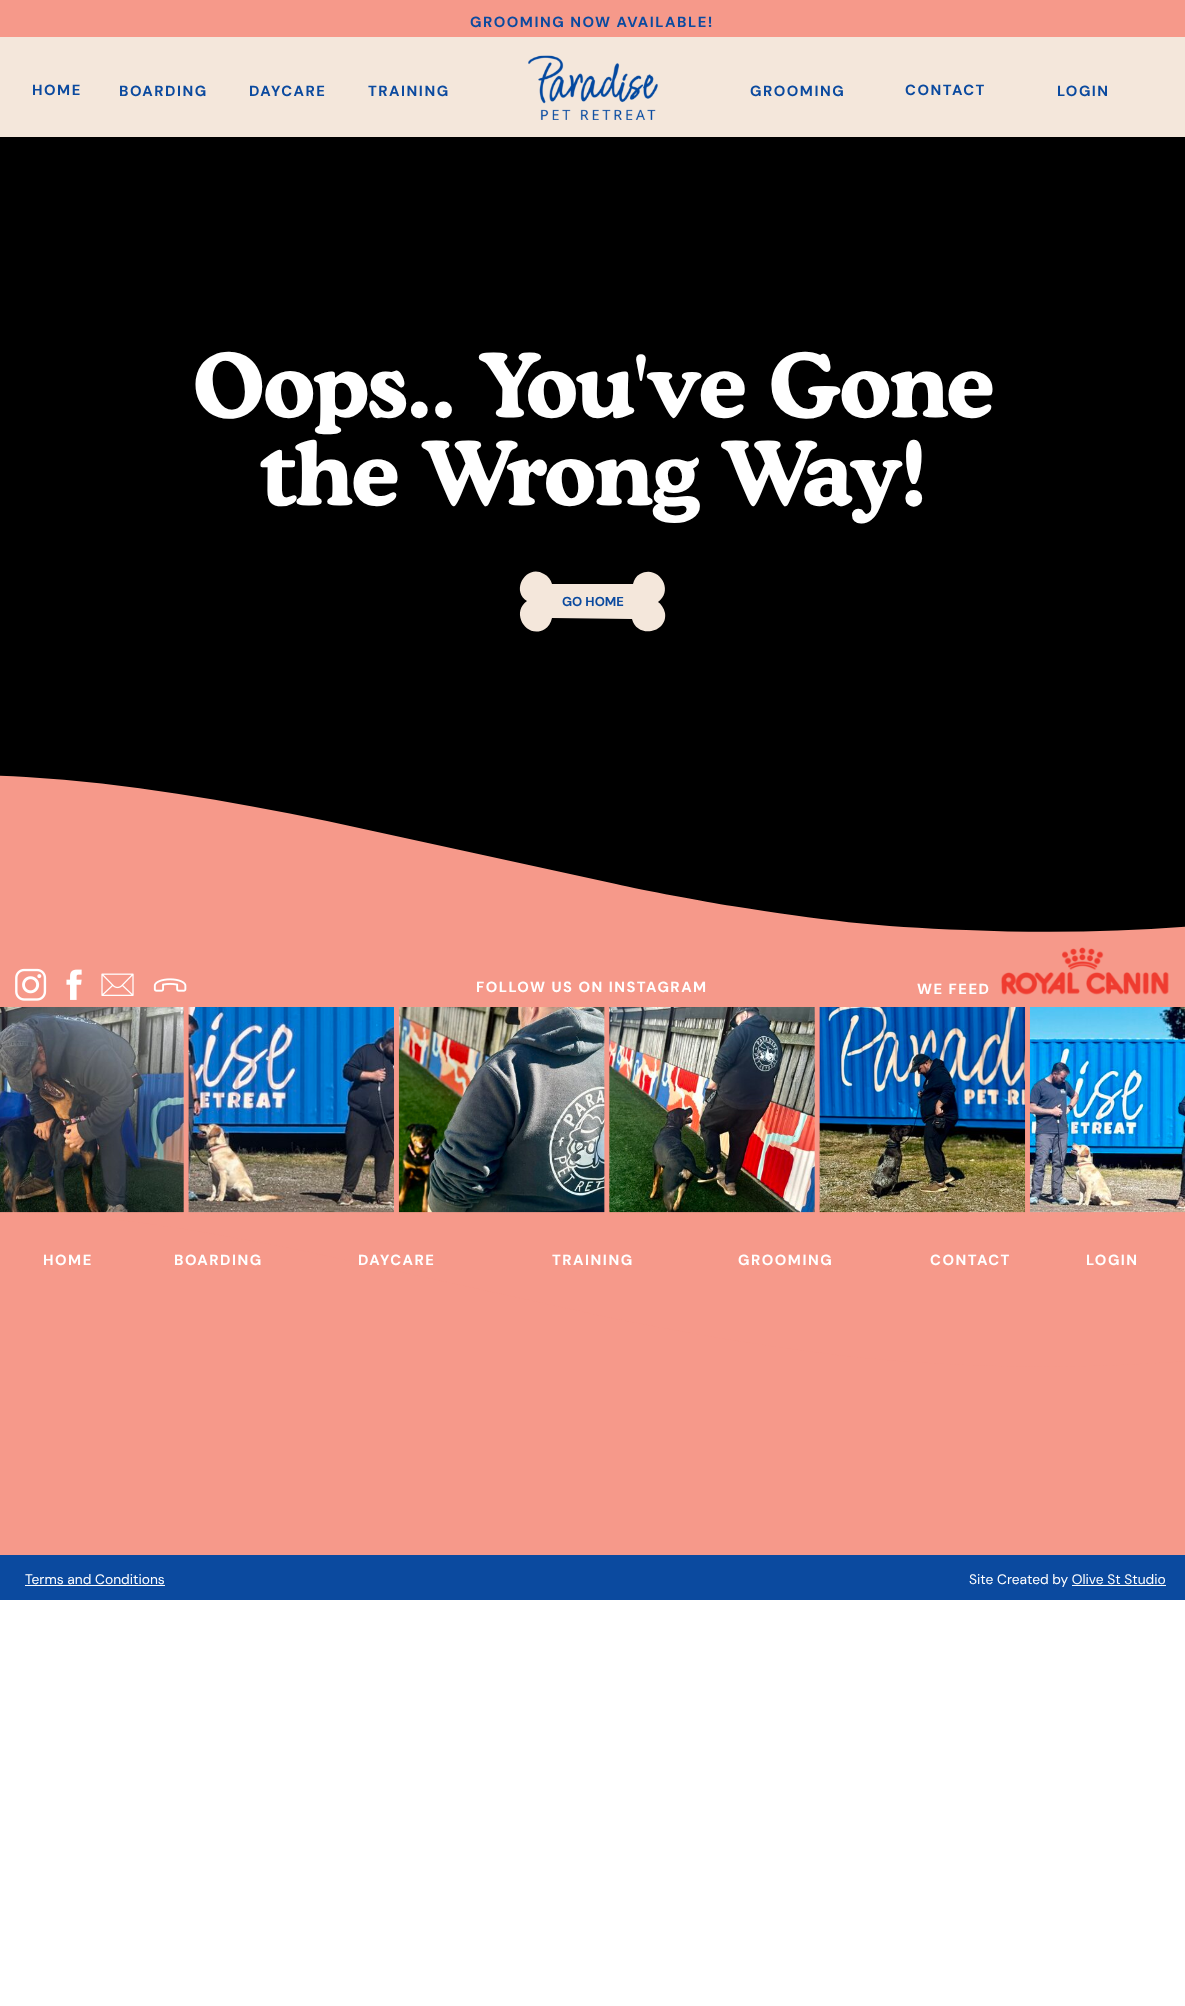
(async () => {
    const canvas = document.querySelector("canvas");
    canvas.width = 1185;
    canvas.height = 2006;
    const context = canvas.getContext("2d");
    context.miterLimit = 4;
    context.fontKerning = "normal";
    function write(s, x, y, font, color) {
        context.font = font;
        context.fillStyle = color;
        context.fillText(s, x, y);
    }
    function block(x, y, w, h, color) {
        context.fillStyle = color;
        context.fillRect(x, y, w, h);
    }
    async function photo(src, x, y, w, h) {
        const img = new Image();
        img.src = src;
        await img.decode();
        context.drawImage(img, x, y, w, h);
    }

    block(0, 0, 1185, 2006, "rgb(255, 255, 255)");
    block(0, 0, 1185, 37, "rgb(246, 153, 138)");
    context.letterSpacing = "1.5px";
    write("GROOMING NOW AVAILABLE!", 470, 27, "bold 14.75px DM Sans", "rgb(11, 74, 159)");
    block(0, 37, 1185, 100, "rgb(244, 231, 219)");
    write("HOME", 32, 95, "bold 14.75px DM Sans", "rgb(11, 74, 159)");
    write("BOARDING", 119, 96, "bold 14.75px DM Sans", "rgb(11, 74, 159)");
    write("DAYCARE", 249, 96, "bold 14.75px DM Sans", "rgb(11, 74, 159)");
    write("TRAINING", 368, 96, "bold 14.75px DM Sans", "rgb(11, 74, 159)");
    await photo("media/1.png", 528, 55, 130, 65);
    write("GROOMING", 750, 96, "bold 14.75px DM Sans", "rgb(11, 74, 159)");
    write("CONTACT", 905, 95, "bold 14.75px DM Sans", "rgb(11, 74, 159)");
    write("LOGIN", 1057, 96, "bold 14.75px DM Sans", "rgb(11, 74, 159)");
    block(0, 137, 1185, 795, "rgb(0, 0, 0)");
    context.letterSpacing = "-1.75px";
    write("Oops.. You've Gone", 193, 417, "bold 87.9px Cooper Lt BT", "rgb(255, 255, 255)");
    write("the Wrong Way!", 260, 505, "bold 87.9px Cooper Lt BT", "rgb(255, 255, 255)");
    context.fillStyle = "rgb(244, 231, 219)";
    context.beginPath();
    context.moveTo(658, 602);
    context.bezierCurveTo(675, 590, 658, 564, 640, 574);
    context.bezierCurveTo(636, 576, 634, 580, 633, 584);
    context.lineTo(552, 584);
    context.bezierCurveTo(551, 580, 548, 576, 544, 574);
    context.bezierCurveTo(527, 563, 510, 590, 527, 601);
    context.bezierCurveTo(510, 613, 527, 640, 545, 629);
    context.bezierCurveTo(548, 627, 551, 623, 552, 618);
    context.lineTo(632, 619);
    context.bezierCurveTo(637, 639, 668, 633, 665, 613);
    context.bezierCurveTo(664, 608, 661, 604, 658, 602);
    context.fill();
    context.letterSpacing = "0px";
    write("GO HOME", 562, 606, "bold 13px DM Sans", "rgb(11, 74, 159)");
    block(0, 1212, 1185, 343, "rgb(246, 153, 138)");
    context.beginPath();
    context.moveTo(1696, 1245);
    context.bezierCurveTo(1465, 1337, 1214, 1375, 966, 1365);
    context.bezierCurveTo(875, 1361, 822, 1354, 732, 1340);
    context.bezierCurveTo(706, 1336, 642, 1324, 616, 1319);
    context.lineTo(327, 1256);
    context.bezierCurveTo(228, 1235, 127, 1217, 26, 1212);
    context.bezierCurveTo(-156, 1201, -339, 1232, -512, 1290);
    context.lineTo(-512, 856);
    context.bezierCurveTo(-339, 798, -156, 767, 26, 777);
    context.bezierCurveTo(127, 783, 228, 801, 327, 821);
    context.lineTo(616, 884);
    context.bezierCurveTo(642, 890, 706, 902, 732, 906);
    context.bezierCurveTo(822, 920, 875, 927, 966, 930);
    context.bezierCurveTo(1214, 941, 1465, 903, 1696, 811);
    context.closePath();
    context.fill();
    await photo("media/2.png", 15, 968, 32, 33);
    await photo("media/3.png", 66, 969, 16, 31);
    await photo("media/4.png", 101, 973, 33, 23);
    await photo("media/5.png", 153, 978, 34, 14);
    context.letterSpacing = "1.5px";
    write("FOLLOW US ON INSTAGRAM", 476, 992, "bold 14.75px DM Sans", "rgb(255, 255, 255)");
    write("WE FEED", 917, 994, "bold 14.75px DM Sans", "rgb(255, 255, 255)");
    await photo("media/6.png", 1001, 947, 168, 48);
    await photo("media/7.png", 0, 1007, 184, 206);
    await photo("media/8.png", 188, 1007, 206, 206);
    await photo("media/9.png", 398, 1007, 207, 206);
    await photo("media/10.png", 609, 1007, 206, 206);
    await photo("media/11.png", 819, 1007, 207, 206);
    await photo("media/12.png", 1029, 1007, 156, 206);
    write("HOME", 43, 1265, "bold 14.75px DM Sans", "rgb(255, 255, 255)");
    write("BOARDING", 174, 1265, "bold 14.75px DM Sans", "rgb(255, 255, 255)");
    write("DAYCARE", 358, 1265, "bold 14.75px DM Sans", "rgb(255, 255, 255)");
    write("TRAINING", 552, 1265, "bold 14.75px DM Sans", "rgb(255, 255, 255)");
    write("GROOMING", 738, 1265, "bold 14.75px DM Sans", "rgb(255, 255, 255)");
    write("CONTACT", 930, 1265, "bold 14.75px DM Sans", "rgb(255, 255, 255)");
    write("LOGIN", 1086, 1265, "bold 14.75px DM Sans", "rgb(255, 255, 255)");
    block(0, 1555, 1185, 45, "rgb(11, 74, 159)");
    context.letterSpacing = "0px";
    write("Terms and Conditions", 25, 1584, "13.8px DM Sans", "rgb(255, 255, 255)");
    block(25, 1585, 140, 1, "rgb(255, 255, 255)");
    write("Site Created by Olive St Studio", 969, 1584, "13.8px DM Sans", "rgb(255, 255, 255)");
    block(1072, 1585, 94, 1, "rgb(255, 255, 255)");
})();
